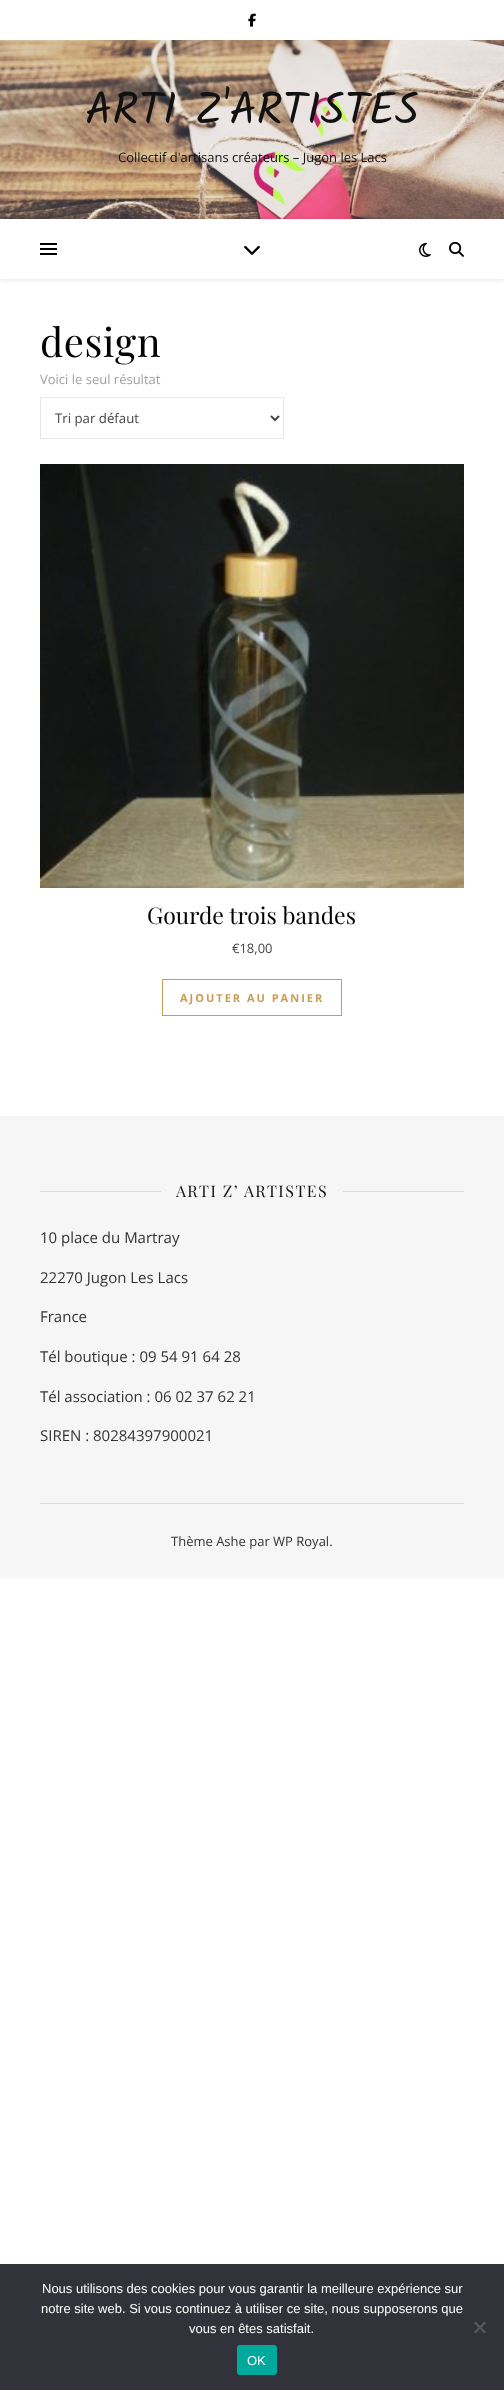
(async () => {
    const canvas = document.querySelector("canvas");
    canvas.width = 504;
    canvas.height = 2390;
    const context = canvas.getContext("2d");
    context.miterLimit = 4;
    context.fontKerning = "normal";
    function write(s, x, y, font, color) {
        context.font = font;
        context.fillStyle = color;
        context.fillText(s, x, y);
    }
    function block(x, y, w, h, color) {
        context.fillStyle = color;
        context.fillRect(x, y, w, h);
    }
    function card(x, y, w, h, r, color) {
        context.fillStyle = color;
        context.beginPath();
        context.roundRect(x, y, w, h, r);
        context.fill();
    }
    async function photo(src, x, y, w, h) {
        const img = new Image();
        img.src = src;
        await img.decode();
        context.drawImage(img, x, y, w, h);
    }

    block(0, 0, 504, 2390, "rgb(255, 255, 255)");
    await photo("media/1.png", 248, 13, 8, 14);
    await photo("media/2.png", 0, 40, 504, 179);
    write("ARTI Z'ARTISTES", 85, 124, "45px Kalam", "rgb(17, 17, 17)");
    write("Collectif d'artisans créateurs – Jugon les Lacs", 118, 162, "13px Open Sans", "rgb(17, 17, 17)");
    context.save();
    context.beginPath();
    context.moveTo(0, 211);
    context.lineTo(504, 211);
    context.lineTo(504, 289);
    context.lineTo(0, 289);
    context.closePath();
    context.moveTo(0, 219);
    context.lineTo(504, 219);
    context.lineTo(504, 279);
    context.lineTo(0, 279);
    context.closePath();
    context.clip("evenodd");
    context.fillStyle = "rgba(0, 0, 0, 0.1)";
    context.filter = "blur(2.5px)";
    context.beginPath();
    context.rect(0, 220, 504, 60);
    context.fill();
    context.filter = "none";
    context.restore();
    block(40, 243, 17, 2, "rgb(0, 0, 0)");
    block(40, 248, 17, 2, "rgb(0, 0, 0)");
    block(40, 253, 17, 2, "rgb(0, 0, 0)");
    await photo("media/3.png", 244, 245, 16, 10);
    await photo("media/4.png", 419, 243, 12, 14);
    await photo("media/5.png", 449, 241, 15, 16);
    context.letterSpacing = "0.5px";
    write("design", 40, 357, "40px Playfair Display", "rgb(3, 3, 3)");
    context.letterSpacing = "0px";
    write("Voici le seul résultat", 40, 384, "13px Open Sans", "rgb(161, 161, 161)");
    context.strokeStyle = "rgb(232, 232, 232)";
    context.strokeRect(40.5, 397.5, 243, 41);
    context.beginPath();
    context.moveTo(271, 416);
    context.lineTo(275, 420);
    context.lineTo(279, 416);
    context.strokeStyle = "rgb(70, 70, 70)";
    context.lineWidth = 2;
    context.stroke();
    write("Tri par défaut", 55, 423, "13.25px Open Sans", "rgb(70, 70, 70)");
    await photo("media/6.png", 40, 464, 424, 424);
    write("Gourde trois bandes", 147, 924, "23px Playfair Display", "rgb(3, 3, 3)");
    write("€18,00", 232, 953, "13px Open Sans", "rgb(70, 70, 70)");
    context.strokeStyle = "rgb(202, 155, 82)";
    context.lineWidth = 1;
    context.strokeRect(162.5, 979.5, 179, 36);
    context.letterSpacing = "2px";
    write("AJOUTER AU PANIER", 180, 1002, "bold 11px Open Sans", "rgb(202, 155, 82)");
    block(0, 1116, 504, 462, "rgb(246, 246, 246)");
    block(40, 1503, 424, 1, "rgb(224, 219, 219)");
    block(40, 1191, 121, 1, "rgb(224, 219, 219)");
    context.letterSpacing = "1.5px";
    write("ARTI Z’ ARTISTES", 176, 1197, "16px Playfair Display", "rgb(17, 17, 17)");
    block(343, 1191, 121, 1, "rgb(224, 219, 219)");
    context.letterSpacing = "0px";
    write("10 place du Martray", 40, 1243, "15px Open Sans", "rgb(51, 51, 51)");
    write("22270 Jugon Les Lacs", 40, 1283, "15px Open Sans", "rgb(51, 51, 51)");
    write("France", 40, 1322, "15px Open Sans", "rgb(51, 51, 51)");
    write("Tél boutique : 09 54 91 64 28", 40, 1362, "15px Open Sans", "rgb(51, 51, 51)");
    write("Tél association : 06 02 37 62 21", 40, 1402, "15px Open Sans", "rgb(51, 51, 51)");
    write("SIREN : 80284397900021", 40, 1441, "15px Open Sans", "rgb(51, 51, 51)");
    write("Thème Ashe par WP Royal.", 171, 1546, "13px Open Sans", "rgb(51, 51, 51)");
    block(0, 2264, 504, 126, "rgb(50, 50, 58)");
    write("Nous utilisons des cookies pour vous garantir la meilleure expérience sur", 42, 2293, "13px Liberation Sans", "rgb(255, 255, 255)");
    write("notre site web. Si vous continuez à utiliser ce site, nous supposerons que", 41, 2313, "13px Liberation Sans", "rgb(255, 255, 255)");
    write("vous en êtes satisfait.", 189, 2333, "13px Liberation Sans", "rgb(255, 255, 255)");
    context.fillStyle = "rgb(89, 89, 93)";
    context.beginPath();
    context.moveTo(484.5, 2321.5);
    context.lineTo(486, 2323);
    context.lineTo(475.5, 2333.5);
    context.lineTo(474, 2332);
    context.closePath();
    context.fill();
    context.beginPath();
    context.moveTo(474, 2323);
    context.lineTo(475.5, 2321.5);
    context.lineTo(486, 2332);
    context.lineTo(484.5, 2333.5);
    context.closePath();
    context.fill();
    card(237, 2345, 40, 30, 3, "rgb(0, 169, 157)");
    write("OK", 247, 2365, "13px Liberation Sans", "rgb(255, 255, 255)");
})();
